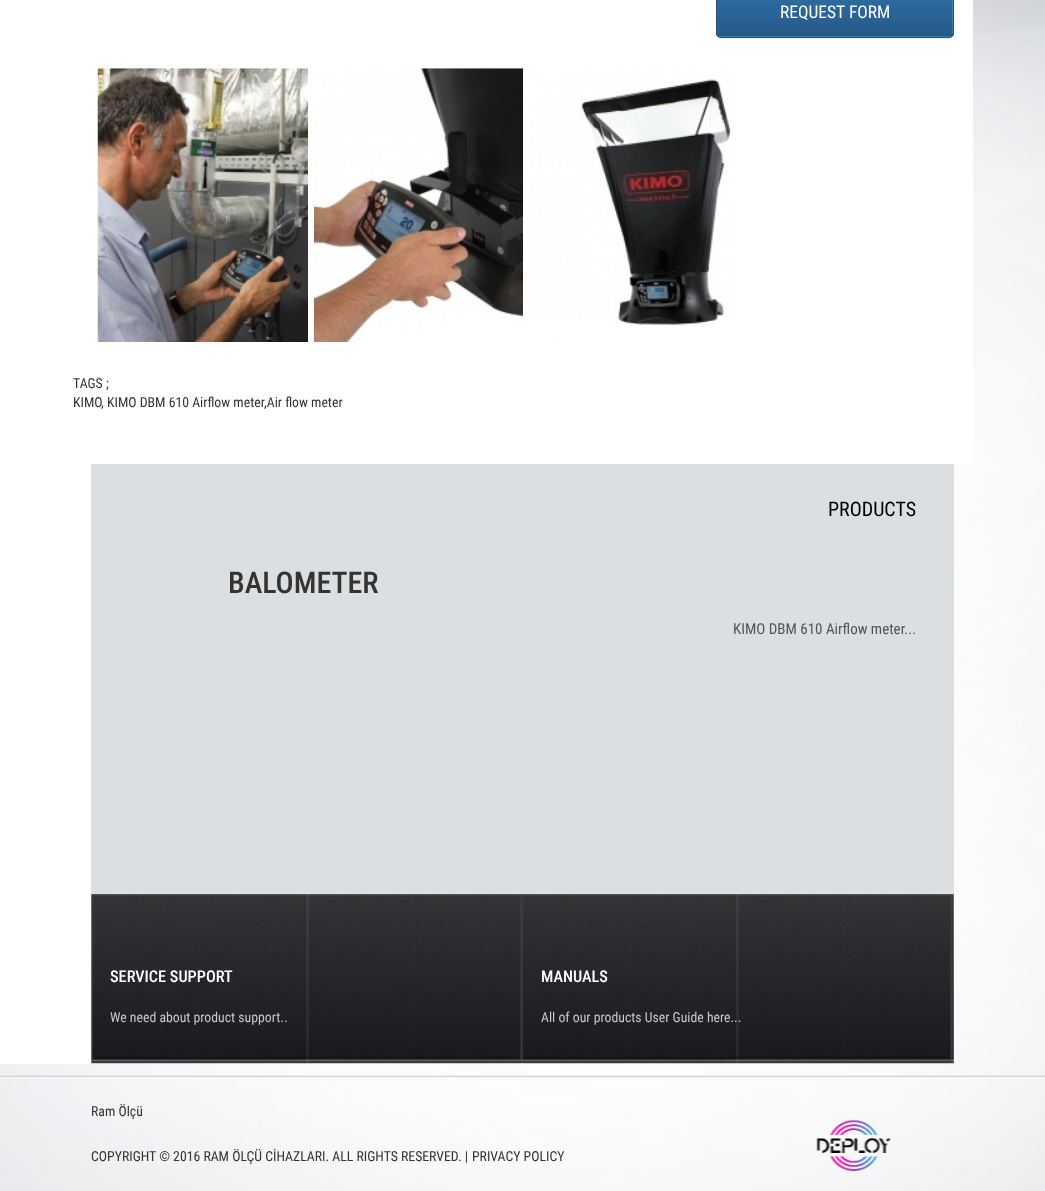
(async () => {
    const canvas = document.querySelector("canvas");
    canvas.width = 1045;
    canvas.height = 1191;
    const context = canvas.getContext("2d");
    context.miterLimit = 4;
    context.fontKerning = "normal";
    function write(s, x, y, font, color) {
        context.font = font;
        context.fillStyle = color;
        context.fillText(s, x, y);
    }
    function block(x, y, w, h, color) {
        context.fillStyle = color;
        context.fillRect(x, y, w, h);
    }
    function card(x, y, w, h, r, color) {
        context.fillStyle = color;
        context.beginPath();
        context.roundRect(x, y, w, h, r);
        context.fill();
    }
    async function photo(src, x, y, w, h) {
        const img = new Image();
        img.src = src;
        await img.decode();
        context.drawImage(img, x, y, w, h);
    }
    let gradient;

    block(0, 0, 1045, 1191, "rgb(255, 255, 255)");
    await photo("media/1.png", 0, 0, 1045, 1191);
    block(0, 0, 702, 1064, "rgb(255, 255, 255)");
    block(702, 0, 271, 464, "rgb(255, 255, 255)");
    context.fillStyle = "rgba(0, 0, 0, 0.07)";
    context.filter = "blur(0.5px)";
    context.beginPath();
    context.roundRect(716, -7, 238, 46, 5);
    context.fill();
    context.filter = "none";
    card(716, -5, 238, 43, 5, "rgb(51, 122, 183)");
    context.save();
    context.beginPath();
    context.roundRect(716, -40, 238, 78, 5);
    context.clip();
    gradient = context.createLinearGradient(835, -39, 835, 36);
    gradient.addColorStop(0, "rgb(51, 122, 183)");
    gradient.addColorStop(1, "rgb(38, 90, 136)");
    context.fillStyle = gradient;
    context.fillRect(716, 0, 238, 36);
    context.restore();
    context.fillStyle = "rgba(255, 255, 255, 0.15)";
    context.beginPath();
    context.moveTo(721, -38);
    context.lineTo(949, -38);
    context.bezierCurveTo(954, -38, 952, -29, 952, -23);
    context.lineTo(952, 35);
    context.bezierCurveTo(953, 34, 953, 33, 953, 32);
    context.lineTo(953, -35);
    context.bezierCurveTo(953, -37, 951, -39, 949, -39);
    context.lineTo(722, -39);
    context.bezierCurveTo(720, -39, 718, -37, 718, -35);
    context.lineTo(718, -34);
    context.bezierCurveTo(718, -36, 719, -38, 721, -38);
    context.closePath();
    context.fill();
    context.beginPath();
    context.roundRect(716.5, -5.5, 237, 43, 4.5);
    context.strokeStyle = "rgb(36, 85, 128)";
    context.stroke();
    write("REQUEST FORM", 780, 18, "17.5px Roboto Condensed", "rgb(255, 255, 255)");
    await photo("media/2.png", 97, 68, 212, 274);
    context.beginPath();
    context.roundRect(311, 66, 281, 280, 3);
    context.strokeStyle = "rgb(255, 255, 255)";
    context.lineWidth = 6;
    context.stroke();
    await photo("media/3.png", 313, 68, 276, 274);
    context.beginPath();
    context.roundRect(526, 66, 281, 280, 3);
    context.stroke();
    await photo("media/4.png", 529, 69, 202, 256);
    write("TAGS ;", 73, 388, "13.75px Roboto Condensed", "rgb(51, 51, 51)");
    write("KIMO", 73, 407, "13.75px Roboto Condensed", "rgb(51, 51, 51)");
    write(",", 101, 407, "13.75px Roboto Condensed", "rgb(51, 51, 51)");
    write("KIMO DBM 610 Airflow meter", 107, 407, "13.75px Roboto Condensed", "rgb(51, 51, 51)");
    write(",Air flow meter", 264, 407, "13.75px Roboto Condensed", "rgb(51, 51, 51)");
    block(91, 464, 863, 430, "rgb(220, 223, 225)");
    write("PRODUCTS", 828, 516, "20px Roboto Condensed", "rgb(0, 0, 0)");
    write("BALOMETER", 228, 593, "500 30px Roboto Condensed", "rgb(51, 51, 51)");
    write("KIMO DBM 610 Airflow meter...", 733, 634, "15px Roboto Condensed", "rgb(83, 83, 83)");
    await photo("media/5.png", 91, 894, 863, 170);
    write("SERVICE SUPPORT", 110, 982, "500 16.25px Roboto Condensed", "rgb(255, 255, 255)");
    write("We need about product support..", 110, 1022, "13.75px Roboto Condensed", "rgb(200, 200, 203)");
    write("MANUALS", 541, 982, "500 16.25px Roboto Condensed", "rgb(255, 255, 255)");
    write("All of our products User Guide here...", 541, 1022, "13.75px Roboto Condensed", "rgb(200, 200, 203)");
    await photo("media/6.png", 0, 1075, 1045, 4);
    write("Ram Ölçü", 91, 1116, "13.75px Roboto Condensed", "rgb(51, 51, 51)");
    write("COPYRIGHT © 2016 RAM ÖLÇÜ CİHAZLARI. ALL RIGHTS RESERVED. |", 91, 1161, "13.75px Roboto Condensed", "rgb(51, 51, 51)");
    write("PRIVACY POLICY", 472, 1161, "13.75px Roboto Condensed", "rgb(51, 51, 51)");
    await photo("media/7.png", 816, 1119, 75, 53);
})();
